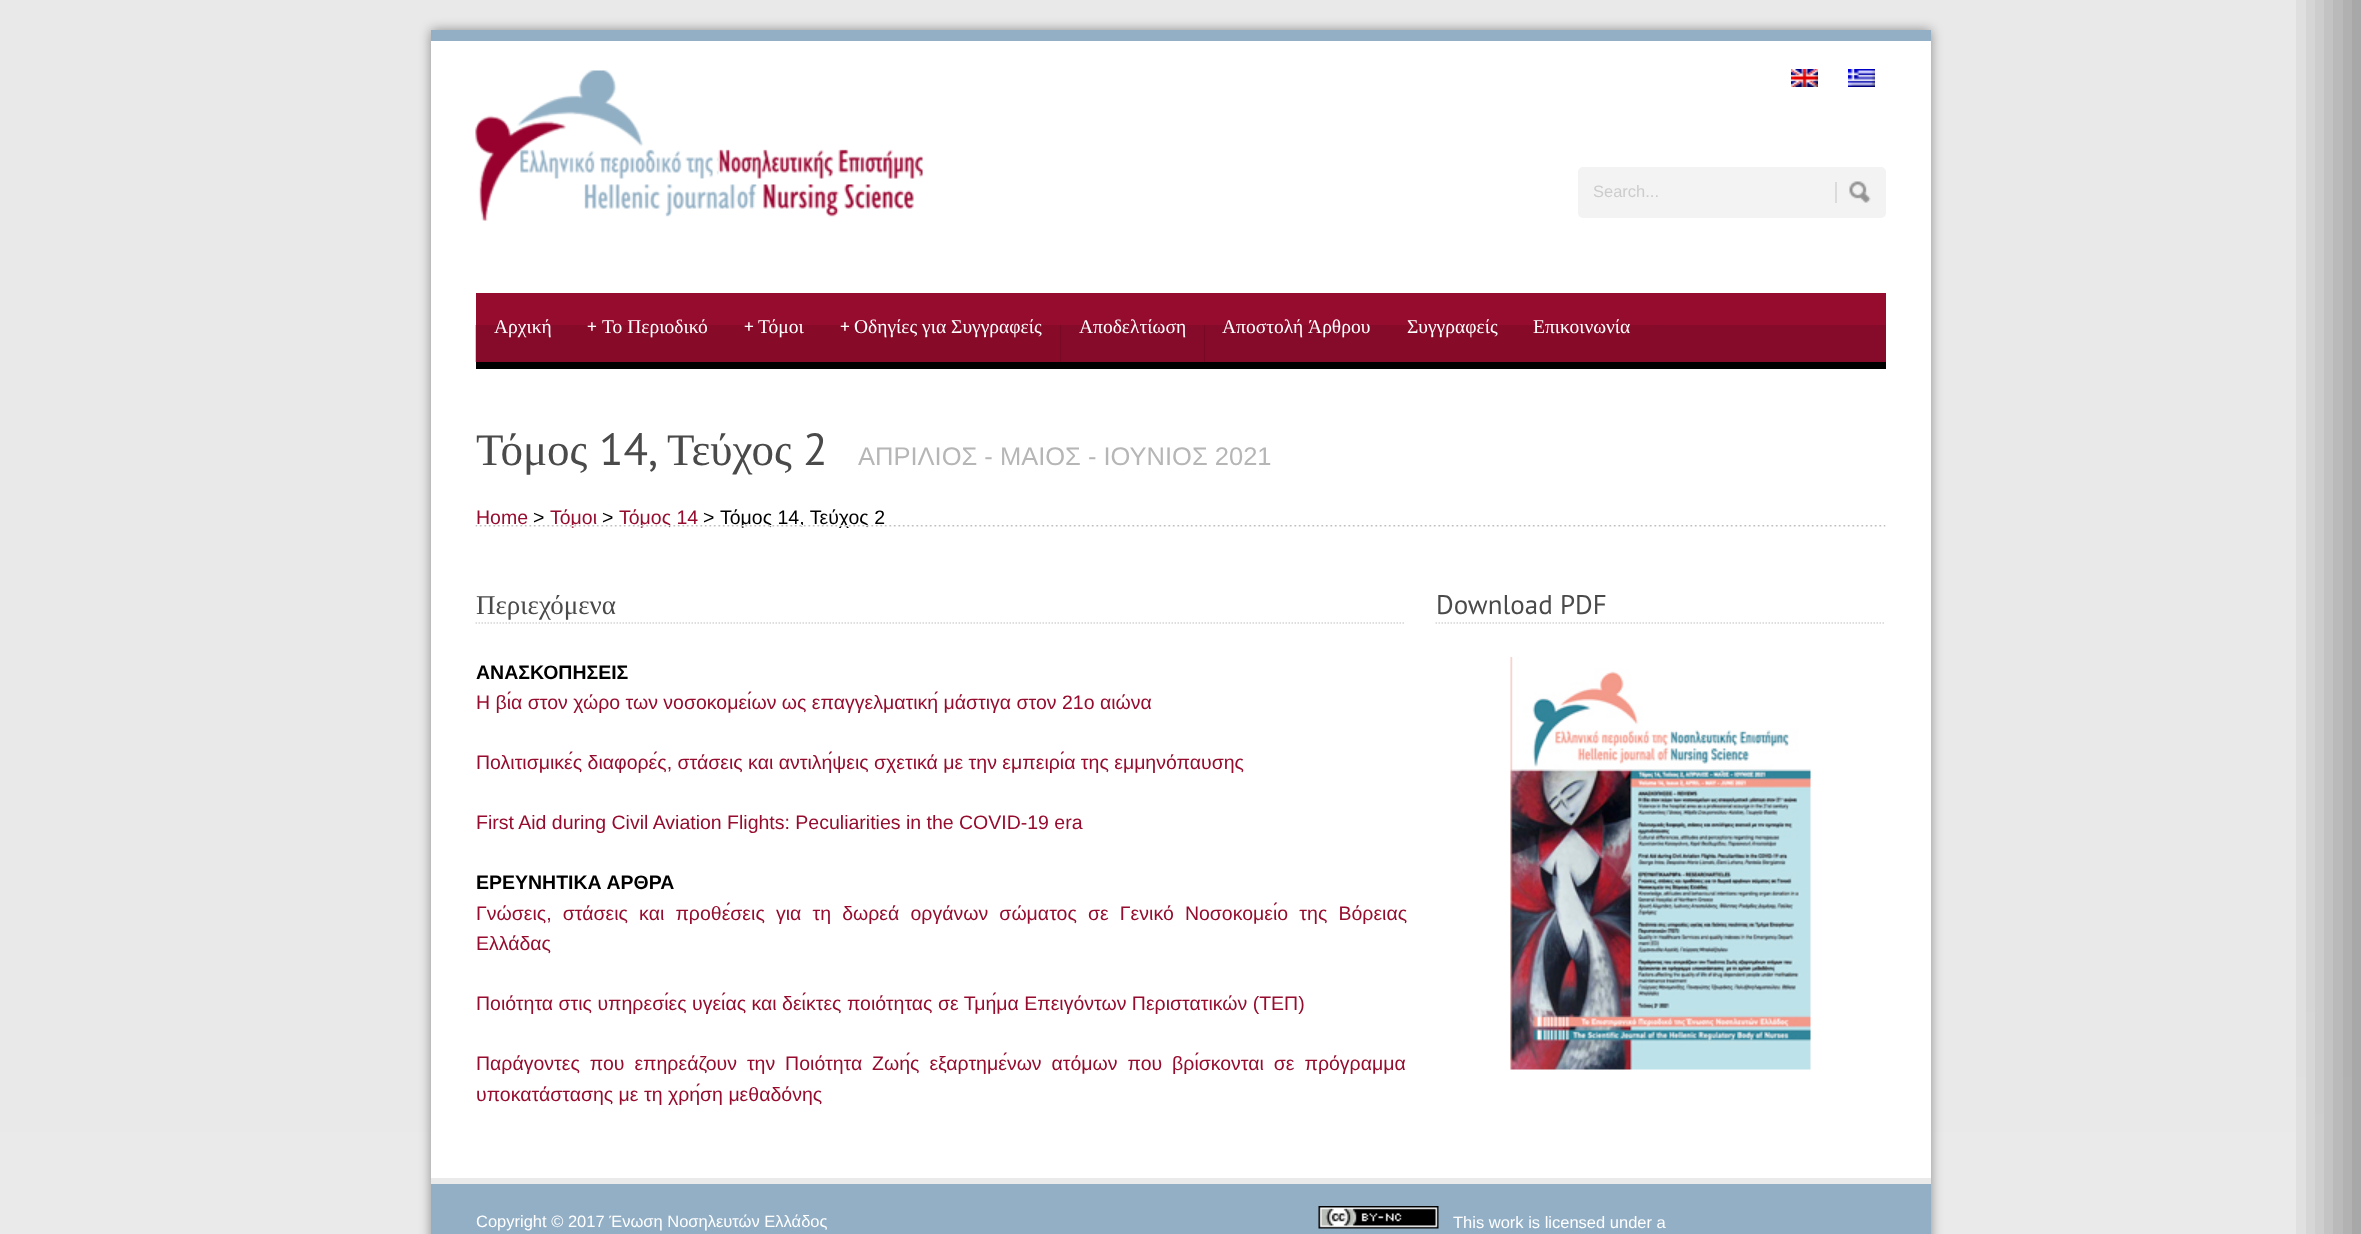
(async () => {
    const canvas = document.querySelector("canvas");
    canvas.width = 2361;
    canvas.height = 1234;
    const context = canvas.getContext("2d");
    context.miterLimit = 4;
    context.fontKerning = "normal";
    function write(s, x, y, font, color) {
        context.font = font;
        context.fillStyle = color;
        context.fillText(s, x, y);
    }
    function block(x, y, w, h, color) {
        context.fillStyle = color;
        context.fillRect(x, y, w, h);
    }
    function card(x, y, w, h, r, color) {
        context.fillStyle = color;
        context.beginPath();
        context.roundRect(x, y, w, h, r);
        context.fill();
    }
    async function photo(src, x, y, w, h) {
        const img = new Image();
        img.src = src;
        await img.decode();
        context.drawImage(img, x, y, w, h);
    }

    block(0, 0, 2361, 1234, "rgb(85, 85, 85)");
    await photo("media/1.png", 0, 0, 2361, 1234);
    context.fillStyle = "rgba(0, 0, 0, 0.4)";
    context.filter = "blur(6px)";
    context.beginPath();
    context.rect(431, 30, 1500, 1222);
    context.fill();
    context.filter = "none";
    block(431, 30, 1500, 11, "rgb(146, 175, 198)");
    block(431, 41, 1500, 1137, "rgb(255, 255, 255)");
    await photo("media/2.png", 475, 70, 448, 151);
    card(1578, 167, 308, 51, 5, "rgb(243, 243, 243)");
    write("Search...", 1593, 197, "16.5px Liberation Sans", "rgb(204, 204, 204)");
    await photo("media/3.png", 1849, 181, 22, 22);
    block(1835, 182, 2, 21, "rgb(219, 219, 219)");
    await photo("media/4.png", 1791, 69, 27, 18);
    await photo("media/5.png", 1848, 69, 27, 18);
    block(1649, 293, 237, 69, "rgb(150, 12, 46)");
    block(475, 325, 1411, 37, "rgba(0, 0, 0, 0.1)");
    block(476, 293, 94, 69, "rgb(150, 12, 46)");
    block(475, 325, 95, 37, "rgba(0, 0, 0, 0.1)");
    write("Αρχική", 494, 333, "19.5px Liberation Serif", "rgb(255, 255, 255)");
    block(570, 293, 491, 32, "rgb(150, 12, 46)");
    block(570, 325, 491, 37, "rgb(135, 11, 41)");
    write("+", 587, 333, "19.5px PT Sans", "rgb(255, 255, 255)");
    write("Το Περιοδικό", 602, 333, "19.5px Liberation Serif", "rgb(255, 255, 255)");
    write("+", 744, 333, "19.5px PT Sans", "rgb(255, 255, 255)");
    write("Τόμοι", 758, 333, "19.5px Liberation Serif", "rgb(255, 255, 255)");
    write("+", 840, 333, "19.5px PT Sans", "rgb(255, 255, 255)");
    write("Οδηγίες για Συγγραφείς", 854, 333, "19.5px Liberation Serif", "rgb(255, 255, 255)");
    block(1061, 293, 328, 69, "rgb(150, 12, 46)");
    block(1060, 325, 145, 37, "rgba(0, 0, 0, 0.1)");
    write("Αποδελτίωση", 1079, 333, "19.5px Liberation Serif", "rgb(255, 255, 255)");
    block(1204, 325, 185, 37, "rgba(0, 0, 0, 0.1)");
    context.wordSpacing = "1px";
    write("Αποστολή Άρθρου", 1222, 333, "19.5px Liberation Serif", "rgb(255, 255, 255)");
    block(1389, 293, 260, 32, "rgb(150, 12, 46)");
    block(1389, 325, 260, 37, "rgb(135, 11, 41)");
    context.wordSpacing = "0px";
    write("Συγγραφείς", 1407, 333, "19.5px Liberation Serif", "rgb(255, 255, 255)");
    write("Επικοινωνία", 1533, 333, "19.5px Liberation Serif", "rgb(255, 255, 255)");
    write("Τόμοι", 550, 524, "19.5px Liberation Sans", "rgb(150, 12, 46)");
    write("Τόμος 14", 619, 524, "19.5px Liberation Sans", "rgb(150, 12, 46)");
    write("Τόμος 14, Τεύχος 2", 720, 524, "19.5px Liberation Sans", "rgb(0, 0, 0)");
    await photo("media/6.png", 475, 525, 1411, 2);
    block(476, 362, 1410, 7, "rgb(0, 0, 0)");
    write("Τόμος", 476, 465, "45px Liberation Serif", "rgb(74, 74, 74)");
    write("14,", 599, 465, "45px PT Sans", "rgb(74, 74, 74)");
    write("Τεύχος", 667, 465, "45px Liberation Serif", "rgb(74, 74, 74)");
    write("2", 803, 465, "45px PT Sans", "rgb(74, 74, 74)");
    write("ΑΠΡΙΛΙΟΣ - ΜΑΙΟΣ - ΙΟΥΝΙΟΣ 2021", 858, 465, "25.5px Liberation Sans", "rgb(182, 182, 182)");
    write("Home", 476, 524, "19.5px Liberation Sans", "rgb(150, 12, 46)");
    write(">", 533, 524, "19.5px Liberation Sans", "rgb(0, 0, 0)");
    write(">", 602, 524, "19.5px Liberation Sans", "rgb(0, 0, 0)");
    write(">", 703, 524, "19.5px Liberation Sans", "rgb(0, 0, 0)");
    context.beginPath();
    context.moveTo(475.5, 623);
    context.lineTo(1405.5, 623);
    context.strokeStyle = "rgb(213, 213, 213)";
    context.lineWidth = 1.5;
    context.setLineDash([1.5, 1.5]);
    context.stroke();
    write("Περιεχόμενα", 476, 614, "27px Liberation Serif", "rgb(74, 74, 74)");
    write("ΑΝΑΣΚΟΠΗΣΕΙΣ", 476, 679, "bold 19.5px Liberation Sans", "rgb(0, 0, 0)");
    write("Η βία στον χώρο των νοσοκομείων ως επαγγελματική μάστιγα στον 21ο αιώνα", 476, 709, "19.5px Liberation Sans", "rgb(150, 12, 46)");
    write("Πολιτισμικές διαφορές, στάσεις και αντιλήψεις σχετικά με την εμπειρία της εμμηνόπαυσης", 476, 769, "19.5px Liberation Sans", "rgb(150, 12, 46)");
    write("First Aid during Civil Aviation Flights: Peculiarities in the COVID-19 era", 476, 829, "19.5px Liberation Sans", "rgb(150, 12, 46)");
    write("ΕΡΕΥΝΗΤΙΚΑ ΑΡΘΡΑ", 476, 889, "bold 19.5px Liberation Sans", "rgb(0, 0, 0)");
    context.wordSpacing = "5.75px";
    write("Γνώσεις, στάσεις και προθέσεις για τη δωρεά οργάνων σώματος σε Γενικό Νοσοκομείο της Βόρειας", 476, 920, "19.5px Liberation Sans", "rgb(150, 12, 46)");
    context.wordSpacing = "0px";
    write("Ελλάδας", 476, 950, "19.5px Liberation Sans", "rgb(150, 12, 46)");
    write("Ποιότητα στις υπηρεσίες υγείας και δείκτες ποιότητας σε Τμήμα Επειγόντων Περιστατικών (ΤΕΠ)", 476, 1010, "19.5px Liberation Sans", "rgb(150, 12, 46)");
    context.wordSpacing = "4.5px";
    write("Παράγοντες που επηρεάζουν την Ποιότητα Ζωής εξαρτημένων ατόμων που βρίσκονται σε πρόγραμμα", 476, 1070, "19.5px Liberation Sans", "rgb(150, 12, 46)");
    context.wordSpacing = "0px";
    write("υποκατάστασης με τη χρήση μεθαδόνης", 476, 1101, "19.5px Liberation Sans", "rgb(150, 12, 46)");
    context.beginPath();
    context.moveTo(1435.5, 623);
    context.lineTo(1885.5, 623);
    context.stroke();
    write("Download PDF", 1436, 614, "27px PT Sans", "rgb(74, 74, 74)");
    await photo("media/7.png", 1510, 657, 301, 413);
    block(431, 1178, 1500, 6, "rgb(234, 234, 234)");
    block(431, 1184, 1500, 50, "rgb(146, 175, 198)");
    write("Copyright © 2017 Ένωση Νοσηλευτών Ελλάδος", 476, 1227, "16.5px Liberation Sans", "rgb(255, 255, 255)");
    await photo("media/8.png", 1318, 1206, 121, 23);
    write("This work is licensed under a", 1453, 1228, "16.5px Liberation Sans", "rgb(255, 255, 255)");
})();
